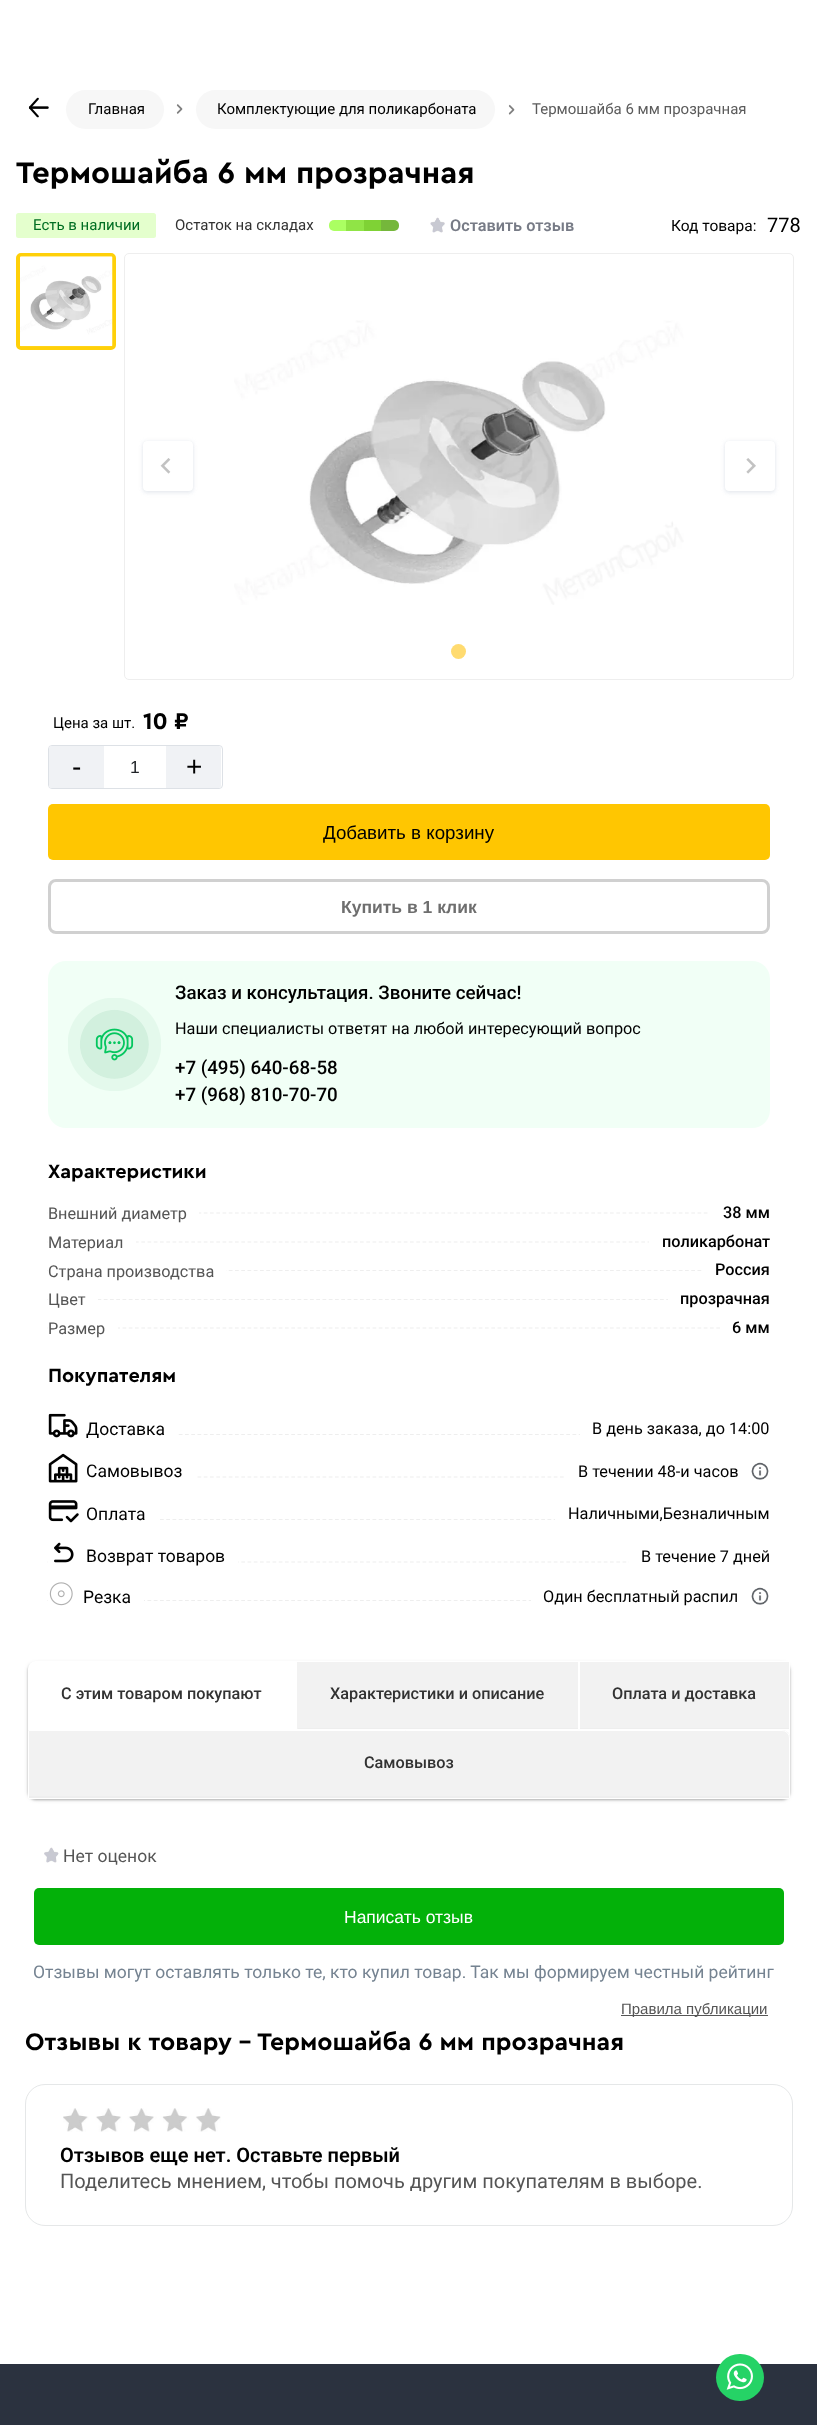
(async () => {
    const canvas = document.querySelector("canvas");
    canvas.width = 817;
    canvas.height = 2425;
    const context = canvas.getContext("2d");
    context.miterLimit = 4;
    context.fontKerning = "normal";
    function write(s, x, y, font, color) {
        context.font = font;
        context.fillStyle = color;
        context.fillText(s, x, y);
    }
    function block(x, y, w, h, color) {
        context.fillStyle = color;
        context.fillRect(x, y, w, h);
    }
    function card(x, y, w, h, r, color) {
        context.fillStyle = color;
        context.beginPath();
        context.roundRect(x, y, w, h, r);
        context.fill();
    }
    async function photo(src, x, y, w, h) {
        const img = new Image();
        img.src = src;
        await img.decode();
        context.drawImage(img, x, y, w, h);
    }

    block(0, 0, 817, 2425, "rgb(255, 255, 255)");
    await photo("media/1.png", 28, 97, 21, 21);
    card(66, 90, 98, 39, 19.5, "rgb(247, 247, 247)");
    write("Главная", 88, 114, "15px Roboto", "rgb(0, 0, 0)");
    await photo("media/2.png", 176, 104, 7, 10);
    card(196, 90, 299, 39, 19.5, "rgb(247, 247, 247)");
    write("Комплектующие для поликарбоната", 217, 114, "15px Roboto", "rgb(0, 0, 0)");
    await photo("media/3.png", 508, 104, 7, 11);
    write("Термошайба 6 мм прозрачная", 532, 114, "15px Roboto", "rgb(91, 91, 91)");
    write("Термошайба 6 мм прозрачная", 16, 183, "bold 31.25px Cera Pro", "rgb(0, 0, 0)");
    card(16, 213, 140, 25, 2.5, "rgb(228, 255, 205)");
    write("Есть в наличии", 33, 230, "15px Roboto", "rgb(0, 110, 34)");
    write("Остаток на складах", 175, 230, "15px Roboto", "rgb(50, 50, 50)");
    context.fillStyle = "rgb(171, 255, 98)";
    context.beginPath();
    context.roundRect(329, 220, 17, 11, [5, 0, 0, 5]);
    context.fill();
    block(346, 220, 18, 11, "rgb(144, 228, 70)");
    block(364, 220, 17, 11, "rgb(127, 210, 53)");
    context.fillStyle = "rgb(117, 183, 59)";
    context.beginPath();
    context.roundRect(381, 220, 18, 11, [0, 5, 5, 0]);
    context.fill();
    await photo("media/4.png", 430, 217, 15, 16);
    write("Оставить отзыв", 450, 231, "600 16.25px Roboto", "rgb(119, 123, 134)");
    write("Код товара:", 671, 231, "15.5px Roboto", "rgb(0, 0, 0)");
    write("778", 767, 232, "20px Roboto", "rgb(0, 0, 0)");
    context.beginPath();
    context.roundRect(18, 255, 96, 93, 3);
    context.strokeStyle = "rgb(255, 208, 9)";
    context.lineWidth = 4;
    context.stroke();
    await photo("media/5.png", 20, 256, 93, 91);
    context.beginPath();
    context.roundRect(124.5, 253.5, 669, 426, 4.5);
    context.strokeStyle = "rgb(238, 238, 238)";
    context.lineWidth = 1;
    context.stroke();
    await photo("media/6.png", 234, 320, 450, 285);
    context.fillStyle = "rgba(162, 174, 193, 0.14)";
    context.filter = "blur(2px)";
    context.beginPath();
    context.roundRect(143, 441, 50, 50, 4);
    context.fill();
    context.filter = "none";
    context.fillStyle = "rgba(162, 174, 193, 0.12)";
    context.filter = "blur(0.5px)";
    context.beginPath();
    context.roundRect(143, 441, 50, 50, 4);
    context.fill();
    context.filter = "none";
    context.fillStyle = "rgba(162, 174, 193, 0.2)";
    context.filter = "blur(2px)";
    context.beginPath();
    context.roundRect(143, 443, 50, 50, 4);
    context.fill();
    context.filter = "none";
    card(143, 441, 50, 50, 4, "rgb(255, 255, 255)");
    await photo("media/7.png", 160, 458, 11, 16);
    context.fillStyle = "rgba(162, 174, 193, 0.14)";
    context.filter = "blur(2px)";
    context.beginPath();
    context.roundRect(725, 441, 50, 50, 4);
    context.fill();
    context.filter = "none";
    context.fillStyle = "rgba(162, 174, 193, 0.12)";
    context.filter = "blur(0.5px)";
    context.beginPath();
    context.roundRect(725, 441, 50, 50, 4);
    context.fill();
    context.filter = "none";
    context.fillStyle = "rgba(162, 174, 193, 0.2)";
    context.filter = "blur(2px)";
    context.beginPath();
    context.roundRect(725, 443, 50, 50, 4);
    context.fill();
    context.filter = "none";
    card(725, 441, 50, 50, 4, "rgb(255, 255, 255)");
    await photo("media/8.png", 746, 458, 10, 16);
    context.fillStyle = "rgb(255, 219, 112)";
    context.beginPath();
    context.arc(458.5, 651.5, 7.5, 0, Math.PI * 2);
    context.fill();
    write("Цена за шт.", 53, 728, "15px Roboto", "rgb(0, 0, 0)");
    write("10 ₽", 143, 729, "bold 24px Cera Pro", "rgb(0, 0, 0)");
    context.beginPath();
    context.roundRect(48.5, 745.5, 174, 43, 3.5);
    context.strokeStyle = "rgb(221, 225, 230)";
    context.stroke();
    context.fillStyle = "rgb(240, 242, 245)";
    context.beginPath();
    context.roundRect(49, 746, 55, 42, [2.5, 0, 0, 2.5]);
    context.fill();
    write("-", 72, 776, "28px Liberation Sans", "rgb(0, 0, 0)");
    write("1", 130, 773, "17.5px Liberation Sans", "rgb(31, 34, 38)");
    context.fillStyle = "rgb(240, 242, 245)";
    context.beginPath();
    context.roundRect(166, 746, 55, 42, [0, 2.5, 2.5, 0]);
    context.fill();
    write("+", 186, 776, "28px Liberation Sans", "rgb(0, 0, 0)");
    card(48, 804, 722, 56, 5, "rgb(255, 198, 1)");
    write("Добавить в корзину", 323, 839, "18.75px Liberation Sans", "rgb(0, 0, 0)");
    context.beginPath();
    context.roundRect(49.5, 880.5, 719, 52, 6.5);
    context.strokeStyle = "rgb(208, 208, 208)";
    context.lineWidth = 3;
    context.stroke();
    write("Купить в 1 клик", 341, 913, "bold 17.5px Liberation Sans", "rgb(110, 110, 110)");
    card(48, 961, 722, 167, 18, "rgb(241, 255, 246)");
    await photo("media/9.png", 68, 998, 93, 93);
    write("Заказ и консультация. Звоните сейчас!", 175, 999, "500 18.75px Roboto", "rgb(0, 0, 0)");
    write("Наши специалисты ответят на любой интересующий вопрос", 175, 1034, "16.25px Roboto", "rgb(0, 0, 0)");
    write("+7 (495) 640-68-58", 175, 1074, "500 18.75px Roboto", "rgb(0, 0, 0)");
    write("+7 (968) 810-70-70", 175, 1101, "500 18.75px Roboto", "rgb(0, 0, 0)");
    write("Характеристики", 48, 1178, "bold 20px Cera Pro", "rgb(0, 0, 0)");
    context.beginPath();
    context.moveTo(47.5, 1213);
    context.lineTo(770, 1213);
    context.strokeStyle = "rgb(238, 238, 238)";
    context.lineWidth = 1.2;
    context.setLineDash([3.75, 2.5]);
    context.stroke();
    block(48, 1212, 151, 2, "rgb(255, 255, 255)");
    write("Внешний диаметр", 48, 1219, "16.25px Roboto", "rgb(85, 85, 85)");
    block(710, 1212, 60, 2, "rgb(255, 255, 255)");
    write("38 мм", 723, 1218, "500 16.25px Roboto", "rgb(0, 0, 0)");
    context.beginPath();
    context.moveTo(47.5, 1242);
    context.lineTo(770, 1242);
    context.stroke();
    block(48, 1241, 88, 2, "rgb(255, 255, 255)");
    write("Материал", 48, 1248, "16.25px Roboto", "rgb(85, 85, 85)");
    block(649, 1241, 121, 2, "rgb(255, 255, 255)");
    write("поликарбонат", 662, 1247, "500 16.25px Roboto", "rgb(0, 0, 0)");
    context.beginPath();
    context.moveTo(47.5, 1270.5);
    context.lineTo(770, 1270.5);
    context.stroke();
    block(48, 1270, 178, 1, "rgb(255, 255, 255)");
    write("Страна производства", 48, 1277, "16.25px Roboto", "rgb(85, 85, 85)");
    block(703, 1270, 67, 1, "rgb(255, 255, 255)");
    write("Россия", 715, 1275, "500 16.25px Roboto", "rgb(0, 0, 0)");
    context.beginPath();
    context.moveTo(47.5, 1299.5);
    context.lineTo(770, 1299.5);
    context.stroke();
    block(48, 1299, 50, 1, "rgb(255, 255, 255)");
    write("Цвет", 48, 1305, "16.25px Roboto", "rgb(85, 85, 85)");
    block(668, 1299, 102, 1, "rgb(255, 255, 255)");
    write("прозрачная", 680, 1304, "500 16.25px Roboto", "rgb(0, 0, 0)");
    context.beginPath();
    context.moveTo(47.5, 1328);
    context.lineTo(770, 1328);
    context.stroke();
    block(48, 1327, 70, 2, "rgb(255, 255, 255)");
    write("Размер", 48, 1334, "16.25px Roboto", "rgb(85, 85, 85)");
    block(722, 1327, 48, 2, "rgb(255, 255, 255)");
    write("6 мм", 732, 1333, "500 16.25px Roboto", "rgb(0, 0, 0)");
    write("Покупателям", 48, 1382, "bold 20px Cera Pro", "rgb(0, 0, 0)");
    context.beginPath();
    context.moveTo(47.5, 1434.5);
    context.lineTo(770, 1434.5);
    context.stroke();
    block(48, 1434, 129, 1, "rgb(255, 255, 255)");
    await photo("media/10.png", 48, 1413, 30, 25);
    write("Доставка", 86, 1435, "17.5px Roboto", "rgb(0, 0, 0)");
    block(580, 1434, 190, 1, "rgb(255, 255, 255)");
    write("В день заказа, до 14:00", 592, 1434, "16.25px Roboto", "rgb(0, 0, 0)");
    context.beginPath();
    context.moveTo(47.5, 1477);
    context.lineTo(770, 1477);
    context.stroke();
    block(48, 1476, 147, 2, "rgb(255, 255, 255)");
    await photo("media/11.png", 48, 1453, 30, 30);
    write("Самовывоз", 86, 1477, "17.5px Roboto", "rgb(0, 0, 0)");
    block(566, 1476, 204, 2, "rgb(255, 255, 255)");
    write("В течении 48-и часов", 578, 1477, "16.25px Roboto", "rgb(0, 0, 0)");
    await photo("media/12.png", 751, 1462, 18, 18);
    context.beginPath();
    context.moveTo(47.5, 1519.5);
    context.lineTo(770, 1519.5);
    context.stroke();
    block(48, 1519, 110, 1, "rgb(255, 255, 255)");
    await photo("media/13.png", 48, 1500, 31, 23);
    write("Оплата", 86, 1520, "17.5px Roboto", "rgb(0, 0, 0)");
    block(555, 1519, 215, 1, "rgb(255, 255, 255)");
    write("Наличными,Безналичным", 568, 1519, "16.25px Roboto", "rgb(0, 0, 0)");
    context.beginPath();
    context.moveTo(47.5, 1562);
    context.lineTo(770, 1562);
    context.stroke();
    block(48, 1561, 190, 2, "rgb(255, 255, 255)");
    await photo("media/14.png", 54, 1542, 20, 21);
    write("Возврат товаров", 86, 1562, "17.5px Roboto", "rgb(0, 0, 0)");
    block(629, 1561, 141, 2, "rgb(255, 255, 255)");
    write("В течение 7 дней", 641, 1562, "16.25px Roboto", "rgb(0, 0, 0)");
    context.beginPath();
    context.moveTo(47.5, 1600.5);
    context.lineTo(770, 1600.5);
    context.stroke();
    block(48, 1600, 96, 1, "rgb(255, 255, 255)");
    await photo("media/15.png", 49, 1582, 24, 24);
    write("Резка", 83, 1603, "17.5px Roboto", "rgb(0, 0, 0)");
    block(531, 1600, 239, 1, "rgb(255, 255, 255)");
    write("Один бесплатный распил", 543, 1602, "16.25px Roboto", "rgb(0, 0, 0)");
    await photo("media/12.png", 751, 1587, 18, 18);
    context.fillStyle = "rgba(0, 0, 0, 0.24)";
    context.filter = "blur(1px)";
    context.beginPath();
    context.roundRect(28, 1663, 762, 137, 8);
    context.fill();
    context.filter = "none";
    context.fillStyle = "rgba(0, 0, 0, 0.12)";
    context.filter = "blur(2px)";
    context.beginPath();
    context.roundRect(28, 1663, 762, 137, 8);
    context.fill();
    context.filter = "none";
    card(28, 1661, 762, 138, 8, "rgb(255, 255, 255)");
    write("С этим товаром покупают", 61, 1699, "500 16.25px Roboto", "rgb(50, 50, 50)");
    block(297, 1662, 281, 67, "rgb(242, 242, 242)");
    block(298, 1728, 280, 1, "rgb(238, 238, 238)");
    write("Характеристики и описание", 330, 1699, "500 16.25px Roboto", "rgb(50, 50, 50)");
    block(580, 1662, 209, 66, "rgb(242, 242, 242)");
    block(580, 1728, 209, 1, "rgb(238, 238, 238)");
    context.strokeStyle = "rgb(255, 255, 255)";
    context.lineWidth = 1;
    context.setLineDash([]);
    context.strokeRect(579.5, 1661.5, 210, 68);
    write("Оплата и доставка", 612, 1699, "500 16.25px Roboto", "rgb(50, 50, 50)");
    context.fillStyle = "rgb(242, 242, 242)";
    context.beginPath();
    context.roundRect(28, 1730, 762, 69, [0, 8, 0, 0]);
    context.fill();
    block(29, 1796, 760, 2, "rgb(238, 238, 238)");
    context.beginPath();
    context.roundRect(28.5, 1730.5, 761, 68, [0, 7.5, 0, 0]);
    context.stroke();
    write("Самовывоз", 364, 1768, "500 16.25px Roboto", "rgb(50, 50, 50)");
    await photo("media/16.png", 44, 1847, 15, 16);
    write("Нет оценок", 63, 1862, "17.5px Roboto", "rgb(85, 85, 85)");
    card(34, 1888, 750, 57, 5, "rgb(3, 177, 9)");
    write("Написать отзыв", 344, 1923, "17.5px Liberation Sans", "rgb(255, 255, 255)");
    write("Отзывы могут оставлять только те, кто купил товар. Так мы формируем честный рейтинг", 33, 1978, "17.5px Roboto", "rgb(117, 131, 145)");
    block(621, 2015, 147, 1, "rgb(85, 85, 85)");
    write("Правила публикации", 621, 2014, "15px Liberation Sans", "rgb(85, 85, 85)");
    write("Отзывы к товару - Термошайба 6 мм прозрачная", 25, 2050, "bold 25px Cera Pro", "rgb(0, 0, 0)");
    context.beginPath();
    context.roundRect(25.5, 2084.5, 767, 141, 19.5);
    context.strokeStyle = "rgb(229, 231, 232)";
    context.stroke();
    await photo("media/17.png", 63, 2108, 158, 24);
    write("Отзывов еще нет. Оставьте первый", 60, 2162, "600 20px Roboto", "rgb(0, 0, 0)");
    write("Поделитесь мнением, чтобы помочь другим покупателям в выборе.", 60, 2188, "20px Roboto", "rgb(85, 85, 85)");
    block(0, 2364, 817, 61, "rgb(43, 50, 63)");
    card(716, 2354, 48, 47, 23.5, "rgb(37, 211, 102)");
    await photo("media/18.png", 726, 2363, 27, 27);
})();
